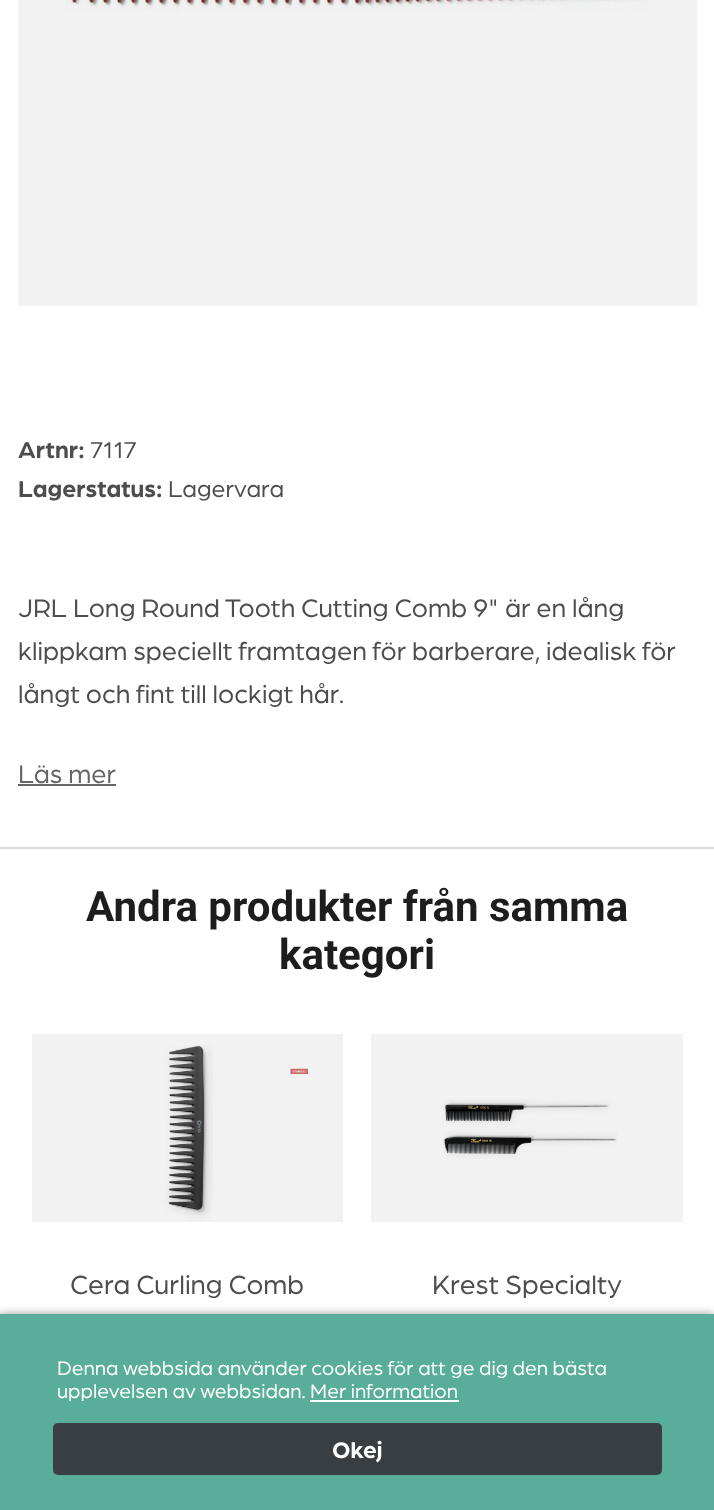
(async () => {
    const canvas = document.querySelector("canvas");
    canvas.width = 714;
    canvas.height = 1510;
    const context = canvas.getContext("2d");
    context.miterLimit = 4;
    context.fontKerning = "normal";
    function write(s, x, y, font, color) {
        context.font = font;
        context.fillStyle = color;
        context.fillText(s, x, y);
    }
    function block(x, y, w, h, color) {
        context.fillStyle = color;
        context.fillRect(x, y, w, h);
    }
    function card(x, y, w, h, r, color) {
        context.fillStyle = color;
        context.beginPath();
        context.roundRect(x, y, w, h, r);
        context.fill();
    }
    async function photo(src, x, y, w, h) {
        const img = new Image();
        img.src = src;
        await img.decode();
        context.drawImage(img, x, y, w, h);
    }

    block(0, 0, 714, 1510, "rgb(255, 255, 255)");
    block(18, 0, 679, 306, "rgb(242, 242, 242)");
    block(0, 847, 714, 2, "rgb(217, 217, 217)");
    await photo("media/1.png", 65, 0, 583, 12);
    write("Artnr:", 18, 458, "bold 24.5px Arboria", "rgb(77, 77, 77)");
    write("7117", 90, 458, "24.5px Arboria", "rgb(77, 77, 77)");
    write("Lagerstatus:", 18, 497, "bold 24.5px Arboria", "rgb(77, 77, 77)");
    write("Lagervara", 168, 497, "24.5px Arboria", "rgb(77, 77, 77)");
    write("JRL Long Round Tooth Cutting Comb 9\" är en lång", 18, 617, "26.95px Arboria", "rgb(77, 77, 77)");
    write("klippkam speciellt framtagen för barberare, idealisk för", 18, 660, "26.95px Arboria", "rgb(77, 77, 77)");
    write("långt och fint till lockigt hår.", 18, 703, "26.95px Arboria", "rgb(77, 77, 77)");
    write("Läs mer", 18, 783, "26.95px Arboria", "rgb(102, 102, 102)");
    block(18, 784, 98, 2, "rgb(102, 102, 102)");
    write("Andra produkter från samma", 86, 921, "bold 42px Roboto", "rgb(29, 29, 29)");
    write("kategori", 279, 969, "bold 42px Roboto", "rgb(29, 29, 29)");
    await photo("media/2.png", 160, 1045, 53, 206);
    await photo("media/3.png", 290, 1068, 18, 6);
    block(32, 1034, 311, 188, "rgba(0, 0, 0, 0.05)");
    write("Cera Curling Comb", 70, 1294, "28px Arboria", "rgb(77, 77, 77)");
    await photo("media/4.png", 442, 1099, 176, 152);
    block(371, 1034, 312, 188, "rgba(0, 0, 0, 0.05)");
    write("Krest Specialty", 432, 1294, "28px Arboria", "rgb(77, 77, 77)");
    context.fillStyle = "rgb(153, 153, 153)";
    context.filter = "blur(4.5px)";
    context.beginPath();
    context.rect(0, 1314, 714, 196);
    context.fill();
    context.filter = "none";
    block(0, 1314, 714, 196, "rgb(88, 174, 152)");
    write("Denna webbsida använder cookies för att ge dig den bästa", 57, 1375, "20.8px Arboria", "rgb(255, 255, 255)");
    write("upplevelsen av webbsidan. Mer information", 57, 1398, "20.8px Arboria", "rgb(255, 255, 255)");
    block(310, 1400, 149, 2, "rgb(255, 255, 255)");
    card(53, 1423, 609, 52, 5, "rgb(56, 62, 65)");
    write("Okej", 332, 1458, "bold 24px Arboria", "rgb(255, 255, 255)");
})();
